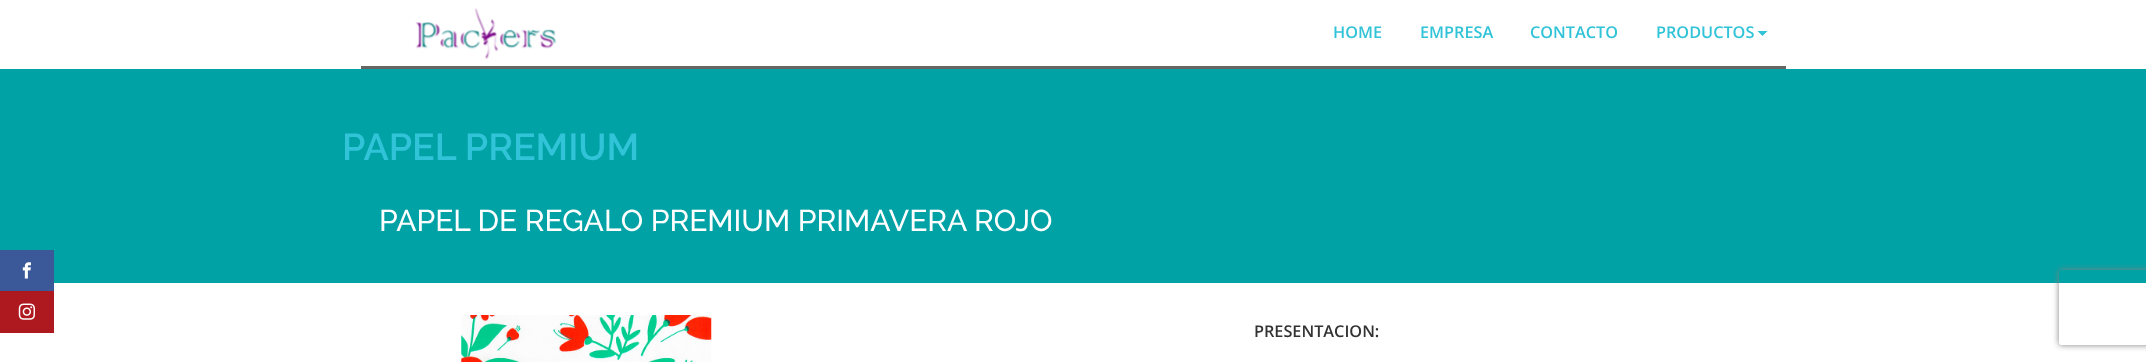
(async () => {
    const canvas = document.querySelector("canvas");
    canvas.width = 2146;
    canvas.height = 362;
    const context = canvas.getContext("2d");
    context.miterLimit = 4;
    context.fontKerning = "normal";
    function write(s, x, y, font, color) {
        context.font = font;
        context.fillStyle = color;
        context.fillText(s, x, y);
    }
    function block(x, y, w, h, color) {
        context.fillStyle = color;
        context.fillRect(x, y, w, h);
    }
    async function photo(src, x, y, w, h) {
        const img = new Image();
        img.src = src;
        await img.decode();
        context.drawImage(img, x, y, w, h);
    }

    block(0, 0, 2146, 362, "rgb(255, 255, 255)");
    block(361, 66, 1425, 3, "rgb(102, 102, 102)");
    await photo("media/1.png", 415, 8, 142, 52);
    write("HOME", 1333, 38, "600 16.25px Open Sans", "rgb(49, 195, 215)");
    write("EMPRESA", 1420, 38, "600 16.25px Open Sans", "rgb(49, 195, 215)");
    write("CONTACTO", 1530, 38, "600 16.25px Open Sans", "rgb(49, 195, 215)");
    write("PRODUCTOS", 1656, 38, "600 16.25px Open Sans", "rgb(49, 195, 215)");
    context.beginPath();
    context.moveTo(1757.5, 31);
    context.lineTo(1767.5, 31);
    context.lineTo(1762.5, 36);
    context.closePath();
    context.fill();
    block(0, 69, 2146, 214, "rgb(1, 162, 166)");
    write("PAPEL PREMIUM", 342, 160, "600 37.5px Raleway", "rgb(49, 195, 215)");
    write("PAPEL DE REGALO PREMIUM PRIMAVERA ROJO", 379, 231, "500 30px Raleway", "rgb(255, 255, 255)");
    block(0, 250, 54, 41, "rgb(59, 89, 152)");
    await photo("media/2.png", 22, 262, 9, 17);
    block(0, 291, 54, 42, "rgb(174, 24, 31)");
    await photo("media/3.png", 18, 303, 17, 17);
    await photo("media/4.png", 461, 315, 251, 47);
    write("PRESENTACION:", 1254, 337, "600 16.25px Open Sans", "rgb(51, 51, 51)");
    context.save();
    context.beginPath();
    context.moveTo(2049, 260);
    context.lineTo(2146, 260);
    context.lineTo(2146, 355);
    context.lineTo(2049, 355);
    context.closePath();
    context.moveTo(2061.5, 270);
    context.lineTo(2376.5, 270);
    context.bezierCurveTo(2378, 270, 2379, 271, 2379, 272.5);
    context.lineTo(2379, 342.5);
    context.bezierCurveTo(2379, 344, 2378, 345, 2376.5, 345);
    context.lineTo(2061.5, 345);
    context.bezierCurveTo(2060, 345, 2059, 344, 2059, 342.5);
    context.lineTo(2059, 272.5);
    context.bezierCurveTo(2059, 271, 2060, 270, 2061.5, 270);
    context.closePath();
    context.clip("evenodd");
    context.fillStyle = "rgb(128, 128, 128)";
    context.filter = "blur(3px)";
    context.beginPath();
    context.roundRect(2059, 270, 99, 75, 2.5);
    context.fill();
    context.filter = "none";
    context.restore();
})();
